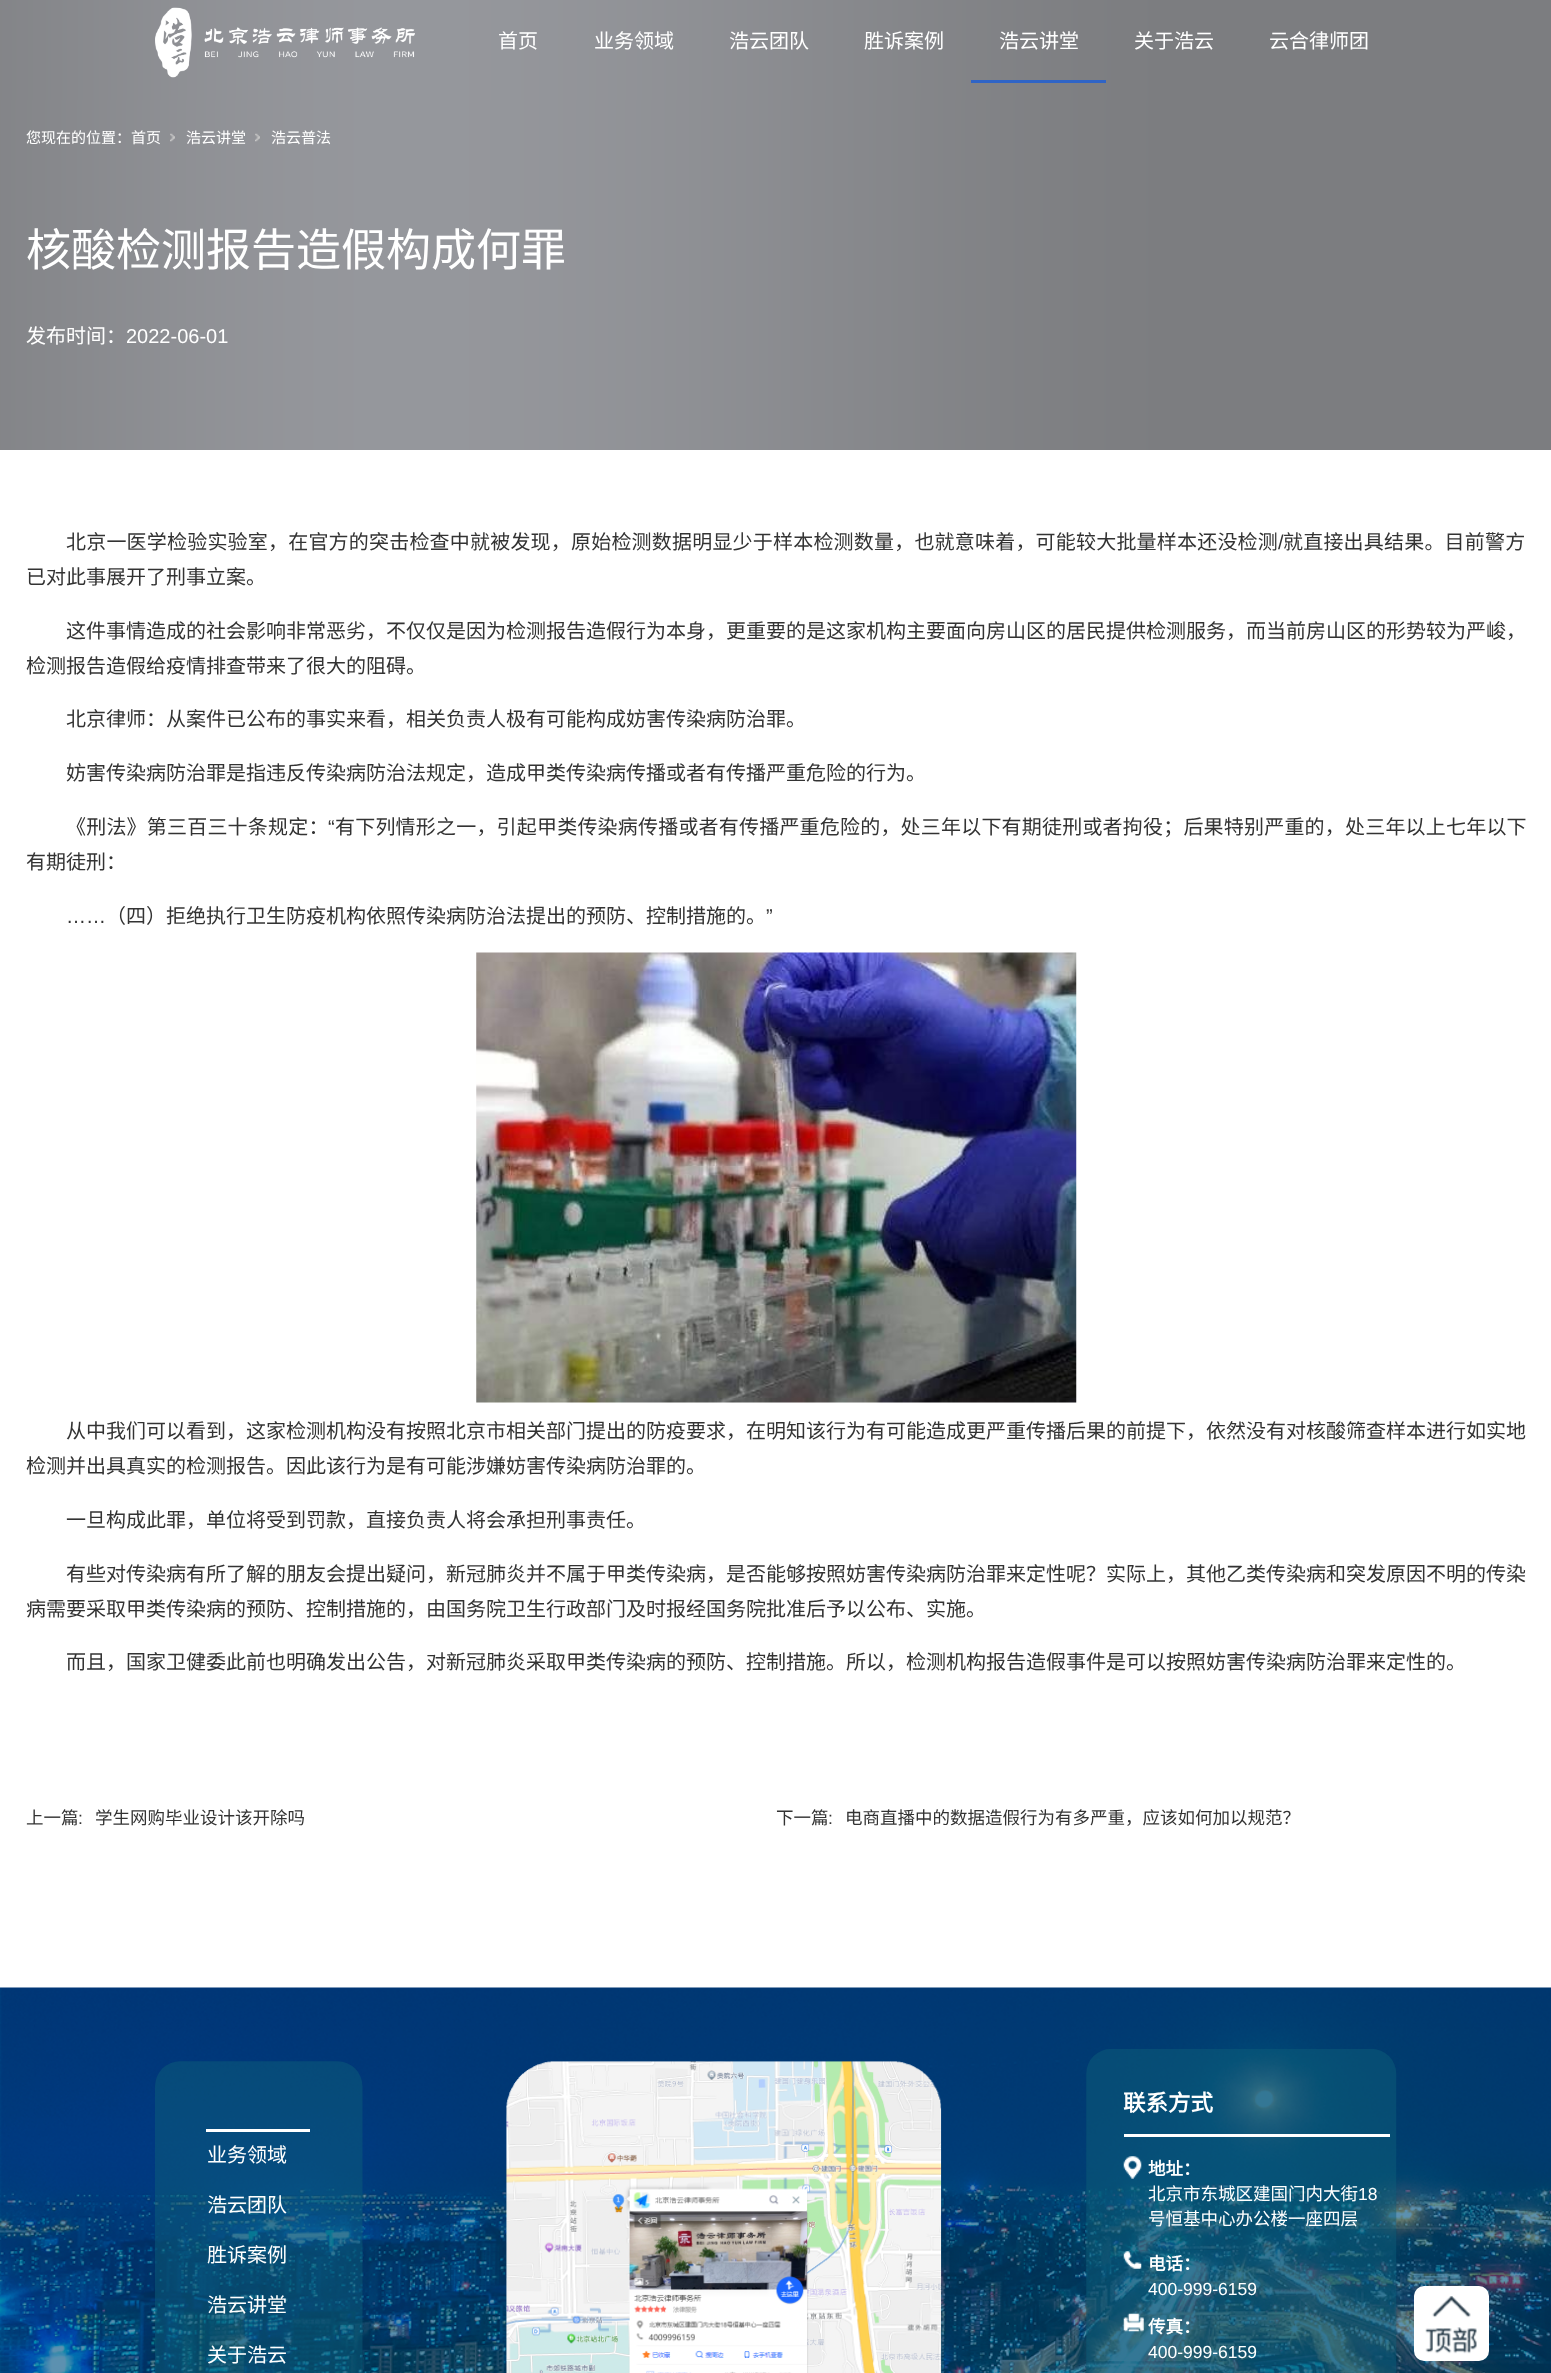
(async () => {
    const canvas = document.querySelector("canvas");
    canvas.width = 1551;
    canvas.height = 2373;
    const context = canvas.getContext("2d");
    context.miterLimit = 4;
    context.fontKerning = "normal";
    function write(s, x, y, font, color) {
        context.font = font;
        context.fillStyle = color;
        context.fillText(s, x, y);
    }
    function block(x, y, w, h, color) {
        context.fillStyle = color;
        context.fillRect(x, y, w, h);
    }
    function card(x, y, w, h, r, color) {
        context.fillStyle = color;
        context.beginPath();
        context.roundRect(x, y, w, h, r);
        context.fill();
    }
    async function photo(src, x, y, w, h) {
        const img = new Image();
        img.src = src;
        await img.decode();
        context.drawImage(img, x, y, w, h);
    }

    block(0, 0, 1551, 2373, "rgb(255, 255, 255)");
    await photo("media/1.png", 0, 0, 1551, 100);
    await photo("media/2.png", 155, 7, 260, 71);
    write("首页", 498, 48, "20px Noto Sans CJK SC", "rgb(255, 255, 255)");
    write("业务领域", 594, 48, "20px Noto Sans CJK SC", "rgb(255, 255, 255)");
    write("浩云团队", 729, 48, "20px Noto Sans CJK SC", "rgb(255, 255, 255)");
    write("胜诉案例", 864, 48, "20px Noto Sans CJK SC", "rgb(255, 255, 255)");
    block(971, 80, 135, 3, "rgb(47, 100, 198)");
    write("浩云讲堂", 999, 48, "20px Noto Sans CJK SC", "rgb(255, 255, 255)");
    write("关于浩云", 1134, 48, "20px Noto Sans CJK SC", "rgb(255, 255, 255)");
    write("云合律师团", 1269, 48, "20px Noto Sans CJK SC", "rgb(255, 255, 255)");
    await photo("media/3.png", 0, 100, 1551, 350);
    write("您现在的位置：首页", 26, 143, "15px Noto Sans CJK SC", "rgb(255, 255, 255)");
    await photo("media/4.png", 170, 133, 5, 9);
    write("浩云讲堂", 186, 143, "15px Noto Sans CJK SC", "rgb(255, 255, 255)");
    await photo("media/5.png", 255, 133, 5, 9);
    write("浩云普法", 271, 143, "15px Noto Sans CJK SC", "rgb(255, 255, 255)");
    write("核酸检测报告造假构成何罪", 26, 266, "45px Noto Sans CJK SC", "rgb(255, 255, 255)");
    write("发布时间：", 26, 343, "20px Noto Sans CJK SC", "rgb(255, 255, 255)");
    write("2022-06-01", 126, 343, "20px Liberation Sans", "rgb(255, 255, 255)");
    context.letterSpacing = "0.2px";
    write("北京一医学检验实验室，在官方的突击检查中就被发现，原始检测数据明显少于样本检测数量，也就意味着，可能较大批量样本还没检测", 66, 549, "20px Noto Sans CJK SC", "rgb(51, 51, 51)");
    write("/", 1278, 549, "20px Liberation Sans", "rgb(51, 51, 51)");
    write("就直接出具结果。目前警方", 1283, 549, "20px Noto Sans CJK SC", "rgb(51, 51, 51)");
    context.letterSpacing = "0px";
    write("已对此事展开了刑事立案。", 26, 584, "20px Noto Sans CJK SC", "rgb(51, 51, 51)");
    write("这件事情造成的社会影响非常恶劣，不仅仅是因为检测报告造假行为本身，更重要的是这家机构主要面向房山区的居民提供检测服务，而当前房山区的形势较为严峻，", 66, 638, "20px Noto Sans CJK SC", "rgb(51, 51, 51)");
    write("检测报告造假给疫情排查带来了很大的阻碍。", 26, 673, "20px Noto Sans CJK SC", "rgb(51, 51, 51)");
    write("北京律师：从案件已公布的事实来看，相关负责人极有可能构成妨害传染病防治罪。", 66, 726, "20px Noto Sans CJK SC", "rgb(51, 51, 51)");
    write("妨害传染病防治罪是指违反传染病防治法规定，造成甲类传染病传播或者有传播严重危险的行为。", 66, 780, "20px Noto Sans CJK SC", "rgb(51, 51, 51)");
    context.letterSpacing = "0.2px";
    write("《刑法》第三百三十条规定：", 66, 834, "20px Noto Sans CJK SC", "rgb(51, 51, 51)");
    write("“", 328, 834, "20px Liberation Sans", "rgb(51, 51, 51)");
    write("有下列情形之一，引起甲类传染病传播或者有传播严重危险的，处三年以下有期徒刑或者拘役；后果特别严重的，处三年以上七年以下", 335, 834, "20px Noto Sans CJK SC", "rgb(51, 51, 51)");
    context.letterSpacing = "0px";
    write("有期徒刑：", 26, 869, "20px Noto Sans CJK SC", "rgb(51, 51, 51)");
    write("（四）拒绝执行卫生防疫机构依照传染病防治法提出的预防、控制措施的。", 106, 923, "20px Noto Sans CJK SC", "rgb(51, 51, 51)");
    write("”", 766, 923, "20px Liberation Sans", "rgb(51, 51, 51)");
    write("……", 66, 923, "20px Liberation Sans", "rgb(51, 51, 51)");
    await photo("media/6.png", 476, 952, 601, 451);
    write("从中我们可以看到，这家检测机构没有按照北京市相关部门提出的防疫要求，在明知该行为有可能造成更严重传播后果的前提下，依然没有对核酸筛查样本进行如实地", 66, 1438, "20px Noto Sans CJK SC", "rgb(51, 51, 51)");
    write("检测并出具真实的检测报告。因此该行为是有可能涉嫌妨害传染病防治罪的。", 26, 1473, "20px Noto Sans CJK SC", "rgb(51, 51, 51)");
    write("一旦构成此罪，单位将受到罚款，直接负责人将会承担刑事责任。", 66, 1527, "20px Noto Sans CJK SC", "rgb(51, 51, 51)");
    write("有些对传染病有所了解的朋友会提出疑问，新冠肺炎并不属于甲类传染病，是否能够按照妨害传染病防治罪来定性呢？实际上，其他乙类传染病和突发原因不明的传染", 66, 1581, "20px Noto Sans CJK SC", "rgb(51, 51, 51)");
    write("病需要采取甲类传染病的预防、控制措施的，由国务院卫生行政部门及时报经国务院批准后予以公布、实施。", 26, 1616, "20px Noto Sans CJK SC", "rgb(51, 51, 51)");
    write("而且，国家卫健委此前也明确发出公告，对新冠肺炎采取甲类传染病的预防、控制措施。所以，检测机构报告造假事件是可以按照妨害传染病防治罪来定性的。", 66, 1669, "20px Noto Sans CJK SC", "rgb(51, 51, 51)");
    write("上一篇", 26, 1824, "17.5px Noto Sans CJK SC", "rgb(51, 51, 51)");
    write(":", 78, 1824, "17.5px Liberation Sans", "rgb(51, 51, 51)");
    write("学生网购毕业设计该开除吗", 95, 1824, "17.5px Noto Sans CJK SC", "rgb(51, 51, 51)");
    write("下一篇", 776, 1824, "17.5px Noto Sans CJK SC", "rgb(51, 51, 51)");
    write(":", 828, 1824, "17.5px Liberation Sans", "rgb(51, 51, 51)");
    write("电商直播中的数据造假行为有多严重，应该如何加以规范？", 845, 1824, "17.5px Noto Sans CJK SC", "rgb(51, 51, 51)");
    await photo("media/7.png", 0, 1987, 1551, 386);
    await photo("media/8.png", 155, 2061, 208, 312);
    block(206, 2129, 104, 3, "rgb(255, 255, 255)");
    write("业务领域", 207, 2162, "20px Noto Sans CJK SC", "rgb(255, 255, 255)");
    write("浩云团队", 207, 2212, "20px Noto Sans CJK SC", "rgb(255, 255, 255)");
    write("胜诉案例", 207, 2262, "20px Noto Sans CJK SC", "rgb(255, 255, 255)");
    write("浩云讲堂", 207, 2312, "20px Noto Sans CJK SC", "rgb(255, 255, 255)");
    write("关于浩云", 207, 2362, "20px Noto Sans CJK SC", "rgb(255, 255, 255)");
    await photo("media/9.png", 506, 2061, 436, 312);
    await photo("media/10.png", 1086, 2049, 311, 324);
    block(1124, 2134, 266, 3, "rgb(255, 255, 255)");
    write("联系方式", 1123, 2111, "bold 22.5px Noto Sans CJK SC", "rgb(255, 255, 255)");
    await photo("media/11.png", 1123, 2156, 19, 23);
    write("地址：", 1148, 2175, "bold 17.5px Noto Sans CJK SC", "rgb(255, 255, 255)");
    write("北京市东城区建国门内大街", 1148, 2200, "17.5px Noto Sans CJK SC", "rgb(255, 255, 255)");
    write("18", 1358, 2200, "17.5px Liberation Sans", "rgb(255, 255, 255)");
    write("号恒基中心办公楼一座四层", 1148, 2225, "17.5px Noto Sans CJK SC", "rgb(255, 255, 255)");
    await photo("media/12.png", 1123, 2251, 19, 18);
    write("电话：", 1148, 2270, "bold 17.5px Noto Sans CJK SC", "rgb(255, 255, 255)");
    write("400-999-6159", 1148, 2295, "17.5px Liberation Sans", "rgb(255, 255, 255)");
    await photo("media/13.png", 1123, 2313, 21, 19);
    write("传真：", 1148, 2333, "bold 17.5px Noto Sans CJK SC", "rgb(255, 255, 255)");
    write("400-999-6159", 1148, 2358, "17.5px Liberation Sans", "rgb(255, 255, 255)");
    card(1414, 2286, 75, 75, 10, "rgb(255, 255, 255)");
    await photo("media/14.png", 1425, 2296, 52, 58);
})();
